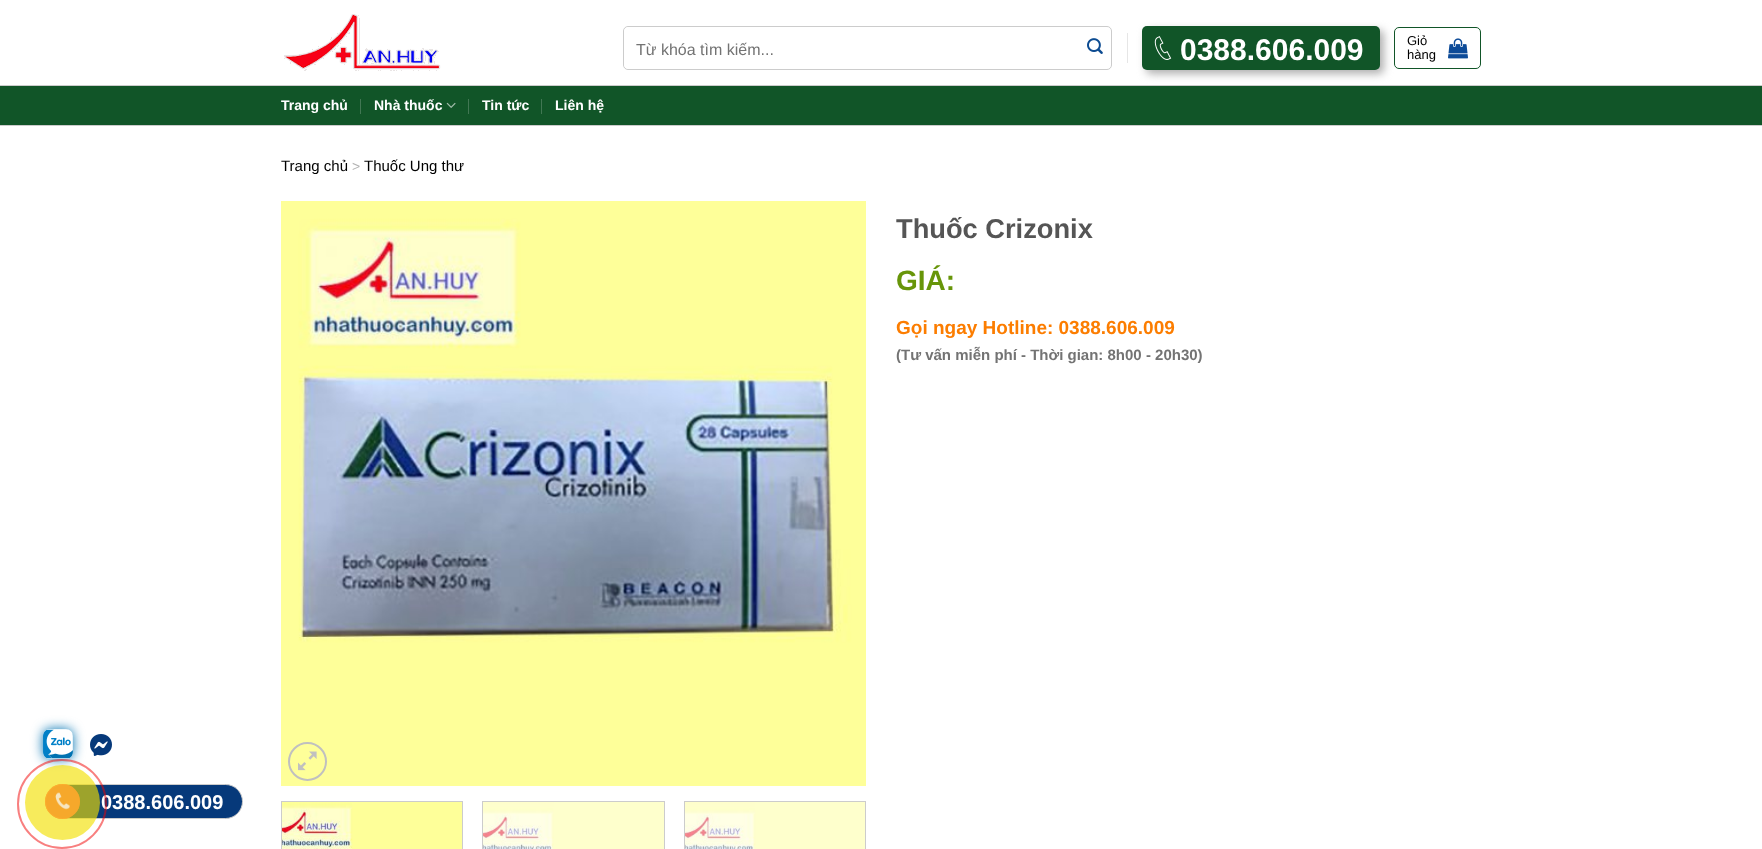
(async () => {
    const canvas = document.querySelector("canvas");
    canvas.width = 1762;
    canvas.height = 849;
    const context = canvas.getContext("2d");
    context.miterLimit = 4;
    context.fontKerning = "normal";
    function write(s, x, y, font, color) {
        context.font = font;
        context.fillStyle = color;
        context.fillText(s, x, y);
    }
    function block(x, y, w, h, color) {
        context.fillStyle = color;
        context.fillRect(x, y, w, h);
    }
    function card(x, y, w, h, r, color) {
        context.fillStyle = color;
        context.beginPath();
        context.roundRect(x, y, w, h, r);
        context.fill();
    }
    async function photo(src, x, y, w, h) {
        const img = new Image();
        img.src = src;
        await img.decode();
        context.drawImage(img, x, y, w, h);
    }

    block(0, 0, 1762, 849, "rgb(255, 255, 255)");
    await photo("media/1.png", 284, 14, 157, 57);
    context.beginPath();
    context.roundRect(623.5, 26.5, 488, 43, 4.5);
    context.strokeStyle = "rgb(204, 204, 204)";
    context.stroke();
    card(624, 27, 455, 42, 5, "rgb(255, 255, 255)");
    write("Từ khóa tìm kiếm...", 636, 55, "16px Liberation Sans", "rgb(115, 115, 115)");
    await photo("media/2.png", 1087, 38, 16, 16);
    block(1127, 33, 1, 30, "rgb(230, 230, 230)");
    block(0, 86, 1762, 39, "rgb(17, 85, 40)");
    block(0, 85, 1762, 1, "rgb(204, 204, 204)");
    context.fillStyle = "rgb(176, 176, 176)";
    context.filter = "blur(4.5px)";
    context.beginPath();
    context.roundRect(1146, 30, 238, 44, 5);
    context.fill();
    context.filter = "none";
    card(1142, 26, 238, 44, 5, "rgb(17, 85, 40)");
    await photo("media/3.png", 1154, 36, 18, 24);
    write("0388.606.009", 1180, 60, "bold 30px Liberation Sans", "rgb(255, 255, 255)");
    context.beginPath();
    context.roundRect(1394.5, 27.5, 86, 41, 4.5);
    context.strokeStyle = "rgb(17, 85, 40)";
    context.stroke();
    write("Giỏ", 1407, 45, "13px Liberation Sans", "rgb(0, 0, 0)");
    write("hàng", 1407, 59, "13px Liberation Sans", "rgb(0, 0, 0)");
    await photo("media/4.png", 1448, 38, 20, 21);
    block(0, 125, 1762, 1, "rgb(204, 204, 204)");
    write("Trang chủ", 281, 110, "bold 14px Liberation Sans", "rgb(255, 255, 255)");
    block(360, 99, 1, 15, "rgb(65, 119, 83)");
    write("Nhà thuốc", 374, 110, "bold 14px Liberation Sans", "rgb(255, 255, 255)");
    await photo("media/5.png", 446, 102, 10, 6);
    block(468, 99, 1, 15, "rgb(65, 119, 83)");
    write("Tin tức", 482, 110, "bold 14px Liberation Sans", "rgb(255, 255, 255)");
    block(541, 99, 1, 15, "rgb(65, 119, 83)");
    write("Liên hệ", 555, 110, "bold 14px Liberation Sans", "rgb(255, 255, 255)");
    write("Trang chủ", 281, 171, "15px Liberation Sans", "rgb(0, 0, 0)");
    write(">", 352, 171, "14px Liberation Sans", "rgb(178, 178, 178)");
    write("Thuốc Ung thư", 364, 171, "15px Liberation Sans", "rgb(0, 0, 0)");
    await photo("media/6.png", 281, 201, 585, 585);
    context.beginPath();
    context.arc(307.5, 761.5, 18.5, 0, Math.PI * 2);
    context.strokeStyle = "rgb(192, 192, 192)";
    context.lineWidth = 2;
    context.stroke();
    await photo("media/7.png", 298, 751, 19, 20);
    context.strokeStyle = "rgb(204, 204, 204)";
    context.lineWidth = 1;
    context.strokeRect(281.5, 801.5, 181, 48);
    await photo("media/8.png", 282, 802, 180, 47);
    context.strokeRect(482.5, 801.5, 182, 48);
    await photo("media/9.png", 483, 802, 181, 47);
    context.strokeRect(684.5, 801.5, 181, 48);
    await photo("media/10.png", 685, 802, 180, 47);
    write("Thuốc Crizonix", 896, 238, "bold 27.25px Liberation Sans", "rgb(85, 85, 85)");
    write("GIÁ:", 896, 290, "bold 28px Liberation Sans", "rgb(103, 149, 9)");
    write("Gọi ngay Hotline: 0388.606.009", 896, 334, "bold 19px Liberation Sans", "rgb(252, 125, 0)");
    write("(Tư vấn miễn phí - Thời gian: 8h00 - 20h30)", 896, 360, "bold 15px Liberation Sans", "rgb(115, 115, 115)");
    await photo("media/12.png", 90, 734, 22, 22);
    context.fillStyle = "rgb(1, 114, 177)";
    context.filter = "blur(6px)";
    context.beginPath();
    context.roundRect(43, 729, 30, 30, 7);
    context.fill();
    context.filter = "none";
    card(43, 729, 30, 30, 7, "rgb(255, 255, 255)");
    await photo("media/11.png", 43, 729, 30, 30);
    context.fillStyle = "rgb(6, 57, 122)";
    context.beginPath();
    context.roundRect(45.5, 784.5, 197, 34, 17);
    context.fill();
    context.stroke();
    write("0388.606.009", 101, 809, "bold 20px Liberation Sans", "rgb(255, 255, 255)");
    context.beginPath();
    context.arc(62, 804, 44, 0, Math.PI * 2);
    context.strokeStyle = "rgba(242, 0, 0, 0.5)";
    context.lineWidth = 2;
    context.stroke();
    context.fillStyle = "rgba(242, 223, 0, 0.64)";
    context.beginPath();
    context.arc(62.5, 802.5, 37.5, 0, Math.PI * 2);
    context.fill();
    context.fillStyle = "rgba(255, 169, 44, 0.7)";
    context.beginPath();
    context.arc(62.5, 801.5, 17.5, 0, Math.PI * 2);
    context.fill();
    await photo("media/13.png", 45, 784, 35, 35);
})();
